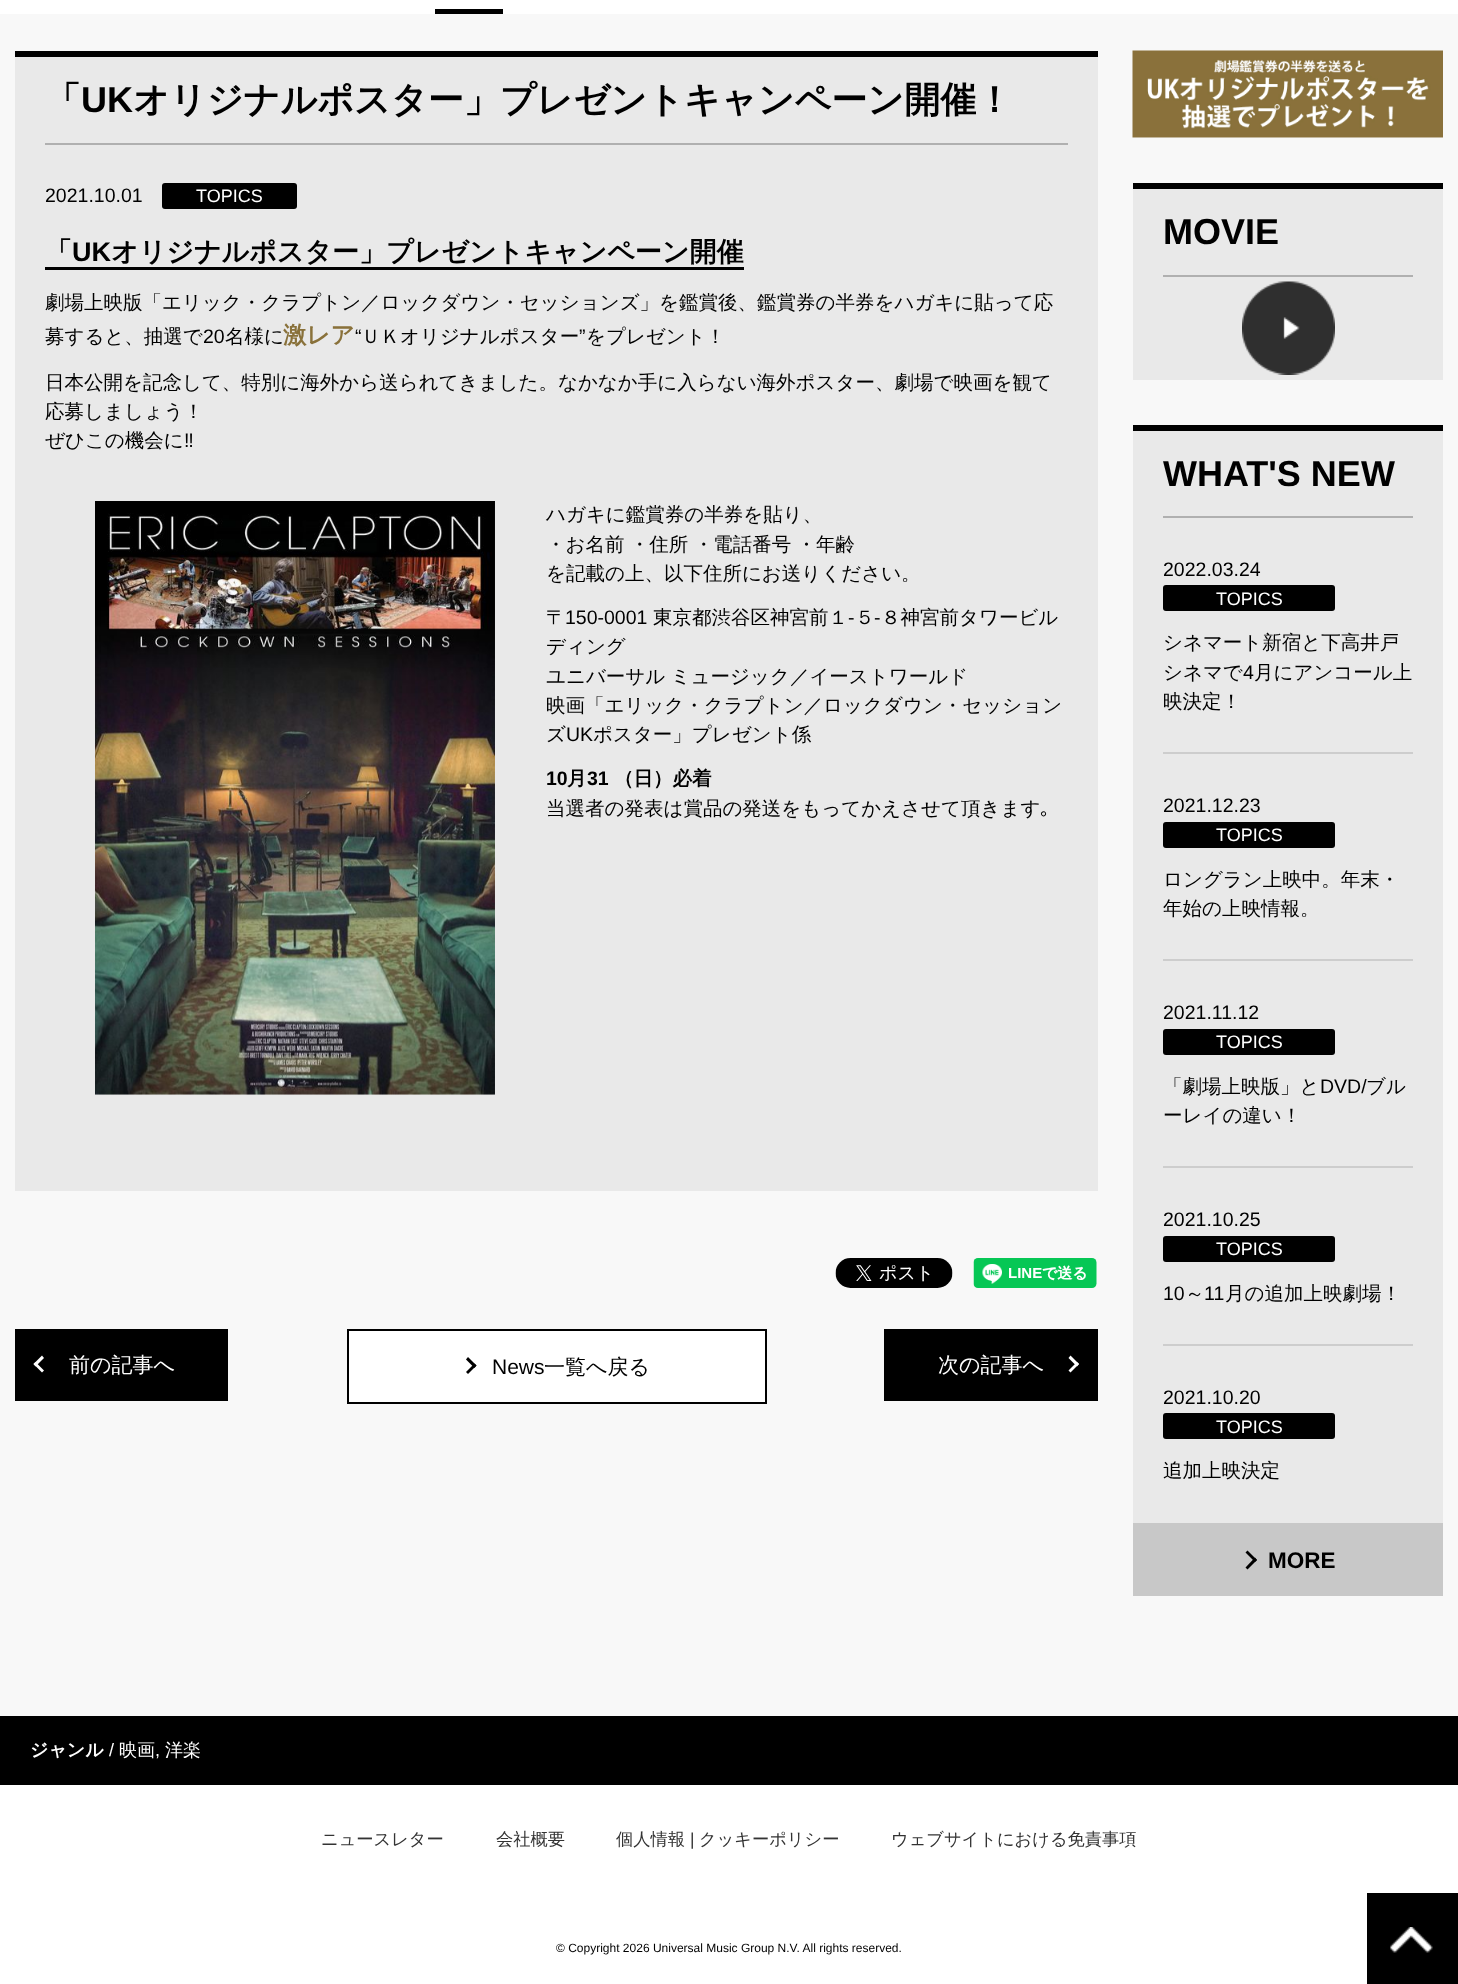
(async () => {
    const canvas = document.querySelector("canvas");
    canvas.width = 1458;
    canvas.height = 1984;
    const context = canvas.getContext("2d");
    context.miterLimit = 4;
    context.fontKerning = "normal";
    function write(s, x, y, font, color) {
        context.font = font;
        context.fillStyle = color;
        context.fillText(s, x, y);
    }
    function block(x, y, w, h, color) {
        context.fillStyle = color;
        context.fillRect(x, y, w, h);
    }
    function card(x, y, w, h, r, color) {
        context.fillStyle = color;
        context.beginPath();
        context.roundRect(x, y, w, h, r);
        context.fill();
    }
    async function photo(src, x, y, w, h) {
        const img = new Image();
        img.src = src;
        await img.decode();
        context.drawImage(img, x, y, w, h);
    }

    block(0, 0, 1458, 1984, "rgb(248, 248, 248)");
    block(0, 0, 1458, 14, "rgb(255, 255, 255)");
    block(435, 9, 68, 5, "rgb(0, 0, 0)");
    block(15, 51, 1083, 6, "rgb(0, 0, 0)");
    block(15, 57, 1083, 1134, "rgb(233, 233, 233)");
    block(45, 143, 1023, 2, "rgb(176, 176, 176)");
    write("「", 45, 112, "bold 36px WenQuanYi Zen Hei", "rgb(0, 0, 0)");
    write("UK", 81, 112, "bold 36px Liberation Sans", "rgb(0, 0, 0)");
    write("オリジナルポスター」プレゼントキャンペーン開催！", 133, 112, "bold 36px WenQuanYi Zen Hei", "rgb(0, 0, 0)");
    write("2021.10.01", 45, 202, "19.5px Liberation Sans", "rgb(0, 0, 0)");
    card(162, 183, 135, 26, 3, "rgb(0, 0, 0)");
    write("TOPICS", 196, 202, "18px Liberation Sans", "rgb(255, 255, 255)");
    write("「", 45, 261, "bold 27px WenQuanYi Zen Hei", "rgb(0, 0, 0)");
    write("UK", 72, 261, "bold 27px Liberation Sans", "rgb(0, 0, 0)");
    block(45, 267, 699, 3, "rgb(0, 0, 0)");
    write("オリジナルポスター」プレゼントキャンペーン開催", 111, 261, "bold 27px WenQuanYi Zen Hei", "rgb(0, 0, 0)");
    write("劇場上映版「エリック・クラプトン／ロックダウン・セッションズ」を鑑賞後、鑑賞券の半券をハガキに貼って応", 45, 309, "500 19.5px WenQuanYi Zen Hei", "rgb(0, 0, 0)");
    write("募すると、抽選で", 45, 343, "500 19.5px WenQuanYi Zen Hei", "rgb(0, 0, 0)");
    write("20", 203, 343, "19.5px Liberation Sans", "rgb(0, 0, 0)");
    write("名様に", 225, 343, "500 19.5px WenQuanYi Zen Hei", "rgb(0, 0, 0)");
    write("激レア", 283, 343, "bold 23.5px WenQuanYi Zen Hei", "rgb(137, 113, 58)");
    write("“", 355, 343, "19.5px Liberation Sans", "rgb(0, 0, 0)");
    write("ＵＫオリジナルポスター", 361, 343, "500 19.5px WenQuanYi Zen Hei", "rgb(0, 0, 0)");
    write("”", 579, 343, "19.5px Liberation Sans", "rgb(0, 0, 0)");
    write("をプレゼント！", 586, 343, "500 19.5px WenQuanYi Zen Hei", "rgb(0, 0, 0)");
    write("日本公開を記念して、特別に海外から送られてきました。なかなか手に入らない海外ポスター、劇場で映画を観て", 45, 389, "500 19.5px WenQuanYi Zen Hei", "rgb(0, 0, 0)");
    write("応募しましょう！", 45, 418, "500 19.5px WenQuanYi Zen Hei", "rgb(0, 0, 0)");
    write("ぜひこの機会に", 45, 447, "500 19.5px WenQuanYi Zen Hei", "rgb(0, 0, 0)");
    write("‼", 184, 447, "19.5px Liberation Sans", "rgb(0, 0, 0)");
    await photo("media/1.png", 95, 501, 400, 594);
    write("ハガキに鑑賞券の半券を貼り、", 546, 521, "500 19.5px WenQuanYi Zen Hei", "rgb(0, 0, 0)");
    context.wordSpacing = "-0.5px";
    write("・お名前 ・住所 ・電話番号 ・年齢", 546, 551, "500 19.5px WenQuanYi Zen Hei", "rgb(0, 0, 0)");
    context.wordSpacing = "0px";
    write("を記載の上、以下住所にお送りください。", 546, 580, "500 19.5px WenQuanYi Zen Hei", "rgb(0, 0, 0)");
    write("〒", 546, 624, "500 19.5px WenQuanYi Zen Hei", "rgb(0, 0, 0)");
    write("150-0001", 565, 624, "19.5px Liberation Sans", "rgb(0, 0, 0)");
    write("東京都渋谷区神宮前１", 653, 624, "500 19.5px WenQuanYi Zen Hei", "rgb(0, 0, 0)");
    write("-", 848, 624, "19.5px Liberation Sans", "rgb(0, 0, 0)");
    write("５", 855, 624, "500 19.5px WenQuanYi Zen Hei", "rgb(0, 0, 0)");
    write("-", 874, 624, "19.5px Liberation Sans", "rgb(0, 0, 0)");
    write("８神宮前タワービル", 881, 624, "500 19.5px WenQuanYi Zen Hei", "rgb(0, 0, 0)");
    write("ディング", 546, 653, "500 19.5px WenQuanYi Zen Hei", "rgb(0, 0, 0)");
    context.wordSpacing = "-0.5px";
    write("ユニバーサル ミュージック／イーストワールド", 546, 683, "500 19.5px WenQuanYi Zen Hei", "rgb(0, 0, 0)");
    context.wordSpacing = "0px";
    write("映画「エリック・クラプトン／ロックダウン・セッション", 546, 712, "500 19.5px WenQuanYi Zen Hei", "rgb(0, 0, 0)");
    write("ズ", 546, 741, "500 19.5px WenQuanYi Zen Hei", "rgb(0, 0, 0)");
    write("UK", 566, 741, "19.5px Liberation Sans", "rgb(0, 0, 0)");
    write("ポスター」プレゼント係", 593, 741, "500 19.5px WenQuanYi Zen Hei", "rgb(0, 0, 0)");
    write("10", 546, 785, "bold 19.5px Liberation Sans", "rgb(0, 0, 0)");
    write("月", 567, 785, "bold 19.5px WenQuanYi Zen Hei", "rgb(0, 0, 0)");
    write("31", 587, 785, "bold 19.5px Liberation Sans", "rgb(0, 0, 0)");
    write("（日）必着", 614, 785, "bold 19.5px WenQuanYi Zen Hei", "rgb(0, 0, 0)");
    write("当選者の発表は賞品の発送をもってかえさせて頂きます", 546, 815, "500 19.5px WenQuanYi Zen Hei", "rgb(0, 0, 0)");
    write("｡", 1040, 815, "19.5px IPAPGothic", "rgb(0, 0, 0)");
    await photo("media/2.png", 835, 1258, 118, 30);
    await photo("media/3.png", 973, 1258, 124, 30);
    block(15, 1329, 213, 72, "rgb(0, 0, 0)");
    context.fillStyle = "rgb(255, 255, 255)";
    context.beginPath();
    context.moveTo(42, 1372.5);
    context.lineTo(33.5, 1364);
    context.lineTo(35.5, 1362);
    context.lineTo(44, 1370.5);
    context.closePath();
    context.fill();
    context.beginPath();
    context.moveTo(35.5, 1366.5);
    context.lineTo(33.5, 1364);
    context.lineTo(42, 1355.5);
    context.lineTo(44, 1358);
    context.closePath();
    context.fill();
    write("前の記事へ", 69, 1372, "500 21px WenQuanYi Zen Hei", "rgb(255, 255, 255)");
    context.beginPath();
    context.rect(348, 1330, 418, 73);
    context.fill();
    context.strokeStyle = "rgb(0, 0, 0)";
    context.lineWidth = 2;
    context.stroke();
    context.fillStyle = "rgb(0, 0, 0)";
    context.beginPath();
    context.moveTo(468, 1357);
    context.lineTo(476.5, 1365.5);
    context.lineTo(474.5, 1368);
    context.lineTo(466, 1359.5);
    context.closePath();
    context.fill();
    context.beginPath();
    context.moveTo(474.5, 1363.5);
    context.lineTo(476.5, 1365.5);
    context.lineTo(468, 1374);
    context.lineTo(466, 1372);
    context.closePath();
    context.fill();
    write("News", 492, 1374, "21px Liberation Sans", "rgb(0, 0, 0)");
    write("一覧へ戻る", 544, 1374, "500 21px WenQuanYi Zen Hei", "rgb(0, 0, 0)");
    block(884, 1329, 214, 72, "rgb(0, 0, 0)");
    write("次の記事へ", 938, 1372, "500 21px WenQuanYi Zen Hei", "rgb(255, 255, 255)");
    context.beginPath();
    context.moveTo(1070.5, 1355.5);
    context.lineTo(1079, 1364);
    context.lineTo(1077, 1366.5);
    context.lineTo(1068.5, 1358);
    context.closePath();
    context.fill();
    context.beginPath();
    context.moveTo(1077, 1362);
    context.lineTo(1079, 1364);
    context.lineTo(1070.5, 1372.5);
    context.lineTo(1068.5, 1370.5);
    context.closePath();
    context.fill();
    await photo("media/4.png", 1132, 50, 311, 88);
    block(1133, 183, 310, 6, "rgb(0, 0, 0)");
    block(1133, 189, 310, 191, "rgb(233, 233, 233)");
    block(1163, 275, 250, 2, "rgb(176, 176, 176)");
    write("MOVIE", 1163, 244, "bold 36px Liberation Sans", "rgb(0, 0, 0)");
    await photo("media/5.png", 1242, 281, 93, 94);
    block(1133, 425, 310, 6, "rgb(0, 0, 0)");
    block(1133, 431, 310, 1092, "rgb(233, 233, 233)");
    block(1163, 516, 250, 2, "rgb(176, 176, 176)");
    write("WHAT'S NEW", 1163, 486, "bold 36px Liberation Sans", "rgb(0, 0, 0)");
    write("2022.03.24", 1163, 576, "19.5px Liberation Sans", "rgb(0, 0, 0)");
    card(1163, 585, 172, 26, 3, "rgb(0, 0, 0)");
    write("TOPICS", 1216, 605, "18px Liberation Sans", "rgb(255, 255, 255)");
    write("シネマート新宿と下高井戸", 1163, 649, "500 19.5px WenQuanYi Zen Hei", "rgb(0, 0, 0)");
    write("シネマで", 1163, 679, "500 19.5px WenQuanYi Zen Hei", "rgb(0, 0, 0)");
    write("4", 1243, 679, "19.5px Liberation Sans", "rgb(0, 0, 0)");
    write("月にアンコール上", 1254, 679, "500 19.5px WenQuanYi Zen Hei", "rgb(0, 0, 0)");
    write("映決定！", 1163, 708, "500 19.5px WenQuanYi Zen Hei", "rgb(0, 0, 0)");
    block(1163, 752, 250, 2, "rgb(205, 205, 205)");
    write("2021.12.23", 1163, 812, "19.5px Liberation Sans", "rgb(0, 0, 0)");
    card(1163, 822, 172, 26, 3, "rgb(0, 0, 0)");
    write("TOPICS", 1216, 841, "18px Liberation Sans", "rgb(255, 255, 255)");
    write("ロングラン上映中。年末・", 1163, 886, "500 19.5px WenQuanYi Zen Hei", "rgb(0, 0, 0)");
    write("年始の上映情報。", 1163, 915, "500 19.5px WenQuanYi Zen Hei", "rgb(0, 0, 0)");
    block(1163, 959, 250, 2, "rgb(205, 205, 205)");
    write("2021.11.12", 1163, 1019, "19.5px Liberation Sans", "rgb(0, 0, 0)");
    card(1163, 1029, 172, 26, 3, "rgb(0, 0, 0)");
    write("TOPICS", 1216, 1048, "18px Liberation Sans", "rgb(255, 255, 255)");
    write("「劇場上映版」と", 1163, 1093, "500 19.5px WenQuanYi Zen Hei", "rgb(0, 0, 0)");
    write("DVD/", 1320, 1093, "19.5px Liberation Sans", "rgb(0, 0, 0)");
    write("ブル", 1366, 1093, "500 19.5px WenQuanYi Zen Hei", "rgb(0, 0, 0)");
    write("ーレイの違い！", 1163, 1122, "500 19.5px WenQuanYi Zen Hei", "rgb(0, 0, 0)");
    block(1163, 1166, 250, 2, "rgb(205, 205, 205)");
    write("2021.10.25", 1163, 1226, "19.5px Liberation Sans", "rgb(0, 0, 0)");
    card(1163, 1236, 172, 26, 3, "rgb(0, 0, 0)");
    write("TOPICS", 1216, 1255, "18px Liberation Sans", "rgb(255, 255, 255)");
    write("10", 1163, 1300, "19.5px Liberation Sans", "rgb(0, 0, 0)");
    write("～", 1185, 1300, "500 19.5px WenQuanYi Zen Hei", "rgb(0, 0, 0)");
    write("11", 1204, 1300, "19.5px Liberation Sans", "rgb(0, 0, 0)");
    write("月の追加上映劇場！", 1225, 1300, "500 19.5px WenQuanYi Zen Hei", "rgb(0, 0, 0)");
    block(1163, 1344, 250, 2, "rgb(205, 205, 205)");
    write("2021.10.20", 1163, 1404, "19.5px Liberation Sans", "rgb(0, 0, 0)");
    card(1163, 1413, 172, 26, 3, "rgb(0, 0, 0)");
    write("TOPICS", 1216, 1433, "18px Liberation Sans", "rgb(255, 255, 255)");
    write("追加上映決定", 1163, 1477, "500 19.5px WenQuanYi Zen Hei", "rgb(0, 0, 0)");
    block(1133, 1523, 310, 73, "rgb(200, 200, 200)");
    context.fillStyle = "rgb(0, 0, 0)";
    context.beginPath();
    context.moveTo(1245.5, 1552.5);
    context.lineTo(1247.5, 1550.5);
    context.lineTo(1257, 1560);
    context.lineTo(1255, 1562);
    context.closePath();
    context.fill();
    context.beginPath();
    context.moveTo(1245.5, 1567.5);
    context.lineTo(1255, 1557.5);
    context.lineTo(1257, 1560);
    context.lineTo(1247.5, 1569.5);
    context.closePath();
    context.fill();
    write("MORE", 1268, 1568, "bold 22.5px Liberation Sans", "rgb(0, 0, 0)");
    block(0, 1716, 1458, 69, "rgb(0, 0, 0)");
    write("ジャンル", 30, 1756, "bold 18px WenQuanYi Zen Hei", "rgb(255, 255, 255)");
    write("/", 109, 1756, "18px Liberation Sans", "rgb(255, 255, 255)");
    write("映画", 119, 1756, "500 18px WenQuanYi Zen Hei", "rgb(255, 255, 255)");
    write(",", 155, 1756, "18px Liberation Sans", "rgb(255, 255, 255)");
    write("洋楽", 165, 1756, "500 18px WenQuanYi Zen Hei", "rgb(255, 255, 255)");
    block(0, 1785, 1458, 199, "rgb(255, 255, 255)");
    write("ニュースレター", 321, 1845, "500 17.25px WenQuanYi Zen Hei", "rgb(51, 51, 51)");
    write("会社概要", 496, 1845, "500 17.25px WenQuanYi Zen Hei", "rgb(51, 51, 51)");
    write("個人情報", 616, 1845, "500 17.25px WenQuanYi Zen Hei", "rgb(51, 51, 51)");
    write("|", 690, 1845, "17.25px Liberation Sans", "rgb(51, 51, 51)");
    write("クッキーポリシー", 699, 1845, "500 17.25px WenQuanYi Zen Hei", "rgb(51, 51, 51)");
    write("ウェブサイトにおける免責事項", 891, 1845, "500 17.25px WenQuanYi Zen Hei", "rgb(51, 51, 51)");
    write("© Copyright 2026 Universal Music Group N.V. All rights reserved.", 556, 1952, "12px Liberation Sans", "rgb(0, 0, 0)");
    block(1367, 1893, 91, 91, "rgb(0, 0, 0)");
    await photo("media/6.png", 1390, 1927, 43, 26);
})();
